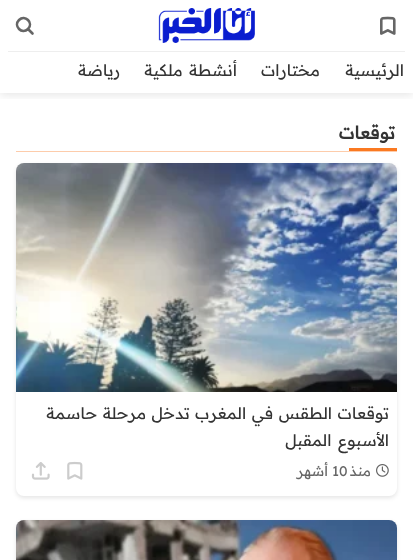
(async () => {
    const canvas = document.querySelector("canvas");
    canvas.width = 413;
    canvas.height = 560;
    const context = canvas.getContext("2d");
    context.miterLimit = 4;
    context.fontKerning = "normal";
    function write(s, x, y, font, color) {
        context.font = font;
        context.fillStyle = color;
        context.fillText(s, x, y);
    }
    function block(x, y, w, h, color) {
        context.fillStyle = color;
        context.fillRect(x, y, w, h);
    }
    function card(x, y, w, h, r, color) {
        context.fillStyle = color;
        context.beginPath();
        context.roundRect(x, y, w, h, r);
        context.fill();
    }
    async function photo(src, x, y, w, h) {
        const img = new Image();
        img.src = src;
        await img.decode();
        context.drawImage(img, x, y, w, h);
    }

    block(0, 0, 413, 560, "rgb(255, 255, 255)");
    context.save();
    context.beginPath();
    context.rect(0, 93, 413, 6);
    context.clip();
    context.fillStyle = "rgba(0, 0, 0, 0.1)";
    context.filter = "blur(5px)";
    context.beginPath();
    context.rect(0, 2, 413, 93);
    context.fill();
    context.filter = "none";
    context.restore();
    await photo("media/1.png", 380, 16, 16, 19);
    await photo("media/2.png", 158, 8, 97, 35);
    context.beginPath();
    context.moveTo(32.5, 33.5);
    context.lineTo(28, 29);
    context.moveTo(28, 29);
    context.bezierCurveTo(34, 23, 25, 14, 19, 20);
    context.bezierCurveTo(13, 26, 22, 35, 28, 29);
    context.closePath();
    context.strokeStyle = "rgb(102, 102, 102)";
    context.lineWidth = 2.6;
    context.lineCap = "round";
    context.lineJoin = "round";
    context.stroke();
    block(8, 51, 397, 1, "rgb(238, 238, 238)");
    context.direction = "rtl";
    write("الرئيسية", 404, 76, "16px Readex Pro", "rgb(51, 51, 51)");
    write("مختارات", 320, 76, "16px Readex Pro", "rgb(51, 51, 51)");
    context.wordSpacing = "2px";
    write("أنشطة ملكية", 237, 76, "16px Readex Pro", "rgb(51, 51, 51)");
    context.wordSpacing = "0px";
    write("رياضة", 120, 76, "16px Readex Pro", "rgb(51, 51, 51)");
    write("توقعات", 395, 139, "bold 17.5px Readex Pro", "rgb(51, 51, 51)");
    block(349, 148, 48, 3, "rgb(250, 121, 33)");
    block(16, 151, 381, 1, "rgb(253, 204, 171)");
    context.fillStyle = "rgba(0, 0, 0, 0.1)";
    context.filter = "blur(2px)";
    context.beginPath();
    context.roundRect(16, 165, 381, 333, 8);
    context.fill();
    context.filter = "none";
    card(16, 163, 381, 333, 8, "rgb(255, 255, 255)");
    await photo("media/3.png", 16, 163, 381, 229);
    context.wordSpacing = "1px";
    write("توقعات الطقس في المغرب تدخل مرحلة حاسمة", 389, 419, "16px Readex Pro", "rgb(51, 51, 51)");
    context.wordSpacing = "2px";
    write("الأسبوع المقبل", 389, 446, "16px Readex Pro", "rgb(51, 51, 51)");
    await photo("media/4.png", 376, 464, 13, 13);
    context.wordSpacing = "0px";
    write("منذ", 371, 476, "14px Readex Pro", "rgb(102, 102, 102)");
    context.direction = "ltr";
    write("10", 332, 476, "14px Readex Pro", "rgb(102, 102, 102)");
    context.direction = "rtl";
    write("أشهر", 328, 476, "14px Readex Pro", "rgb(102, 102, 102)");
    await photo("media/5.png", 67, 461, 16, 19);
    await photo("media/6.png", 31, 462, 19, 18);
    context.fillStyle = "rgba(0, 0, 0, 0.1)";
    context.filter = "blur(2px)";
    context.beginPath();
    context.roundRect(16, 522, 381, 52, 8);
    context.fill();
    context.filter = "none";
    await photo("media/7.png", 16, 520, 381, 40);
})();
